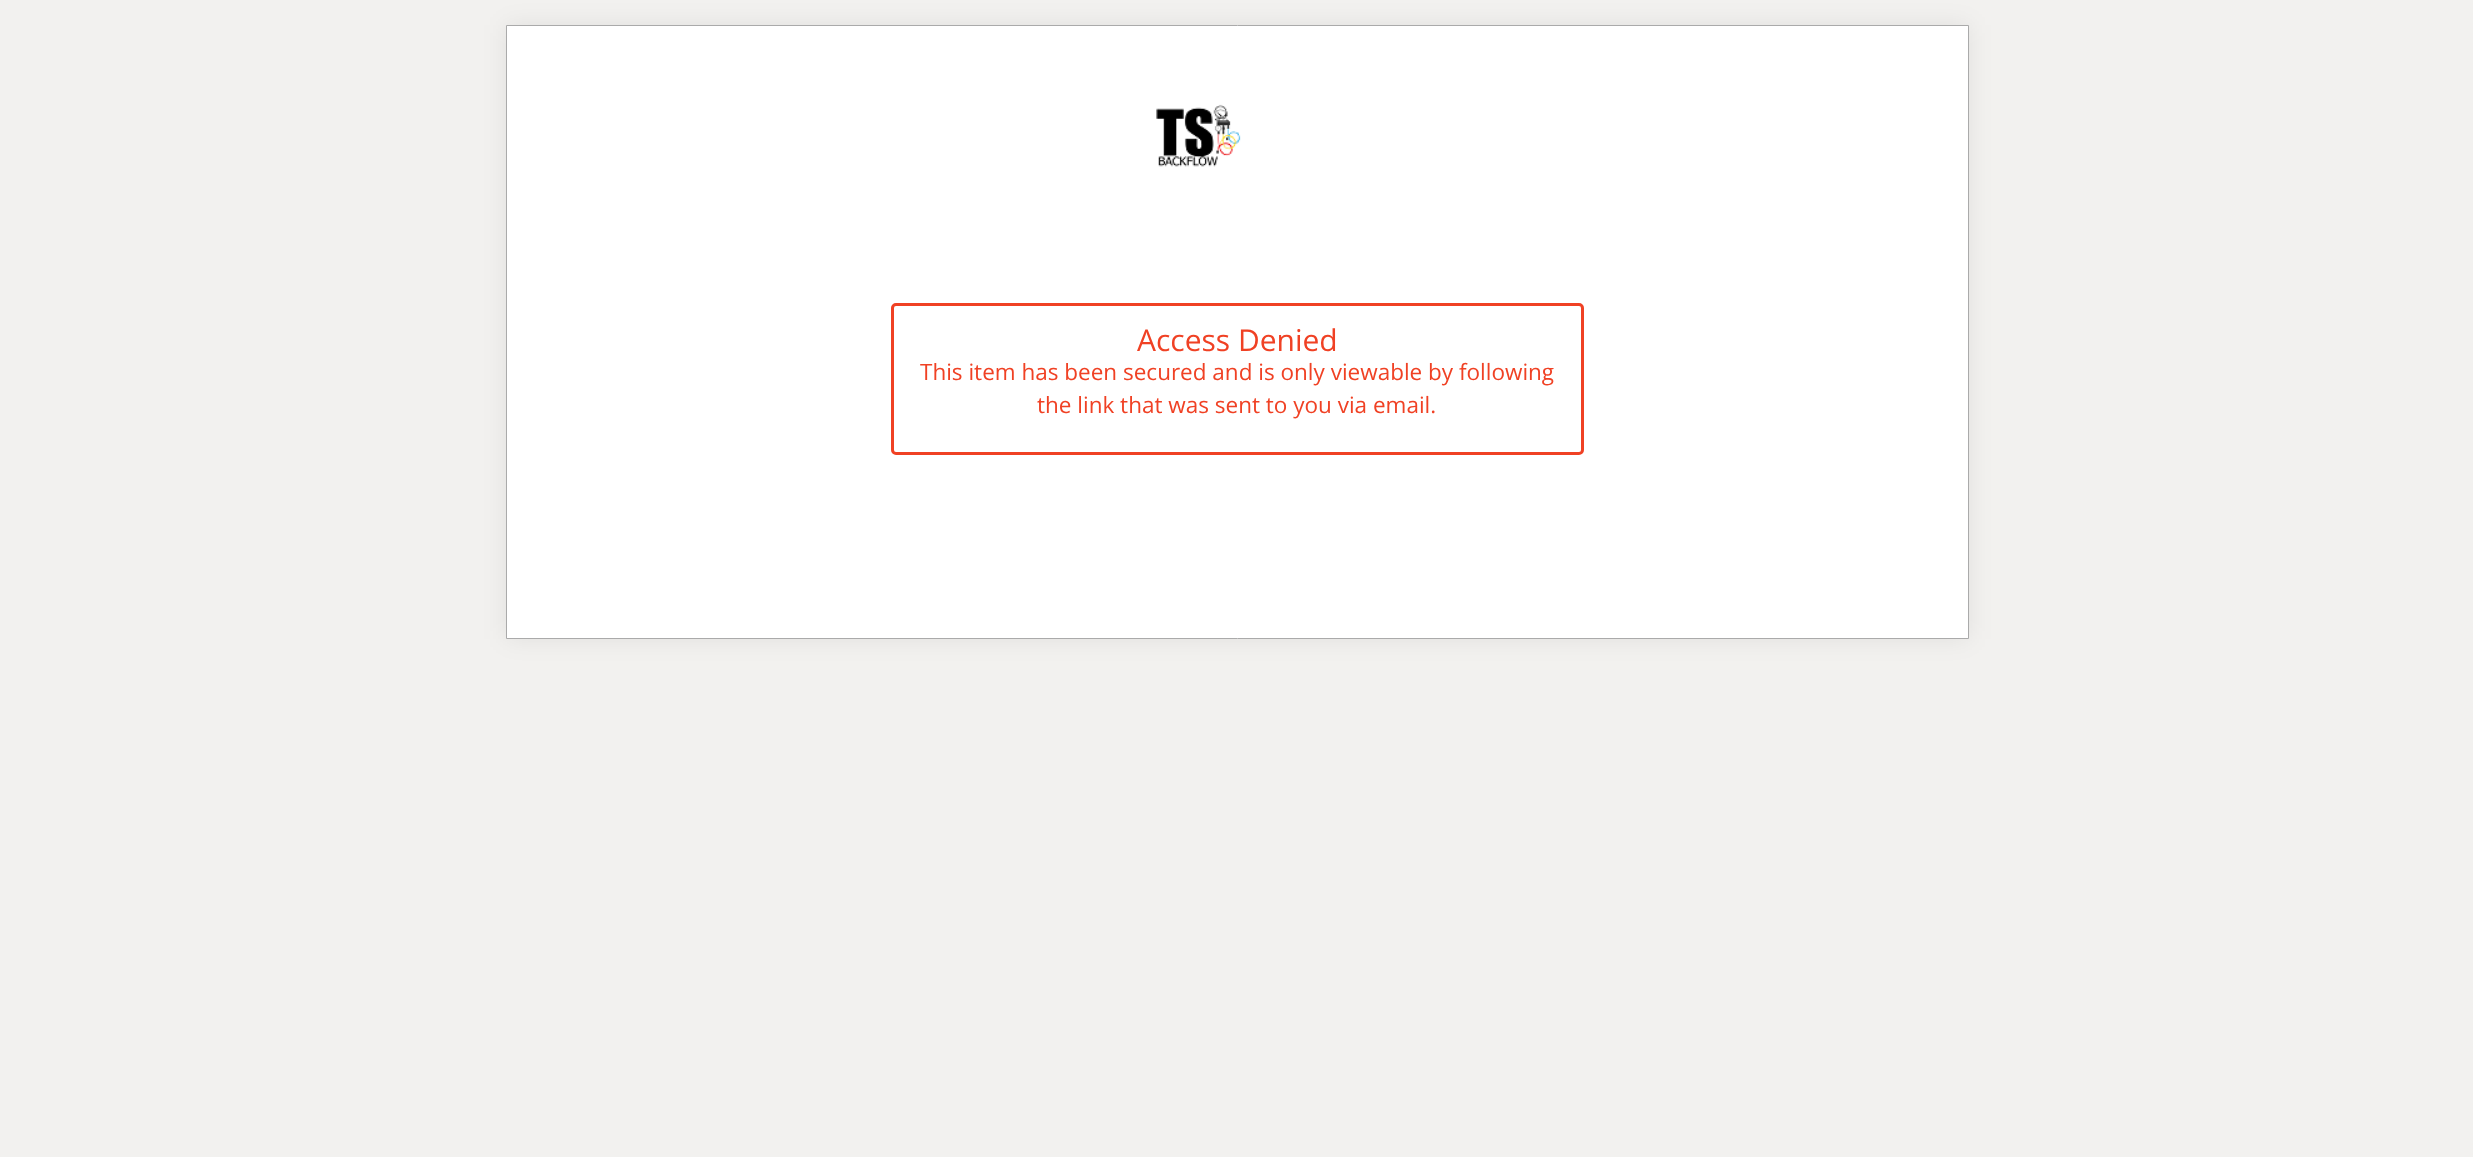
(async () => {
    const canvas = document.querySelector("canvas");
    canvas.width = 2473;
    canvas.height = 1157;
    const context = canvas.getContext("2d");
    context.miterLimit = 4;
    context.fontKerning = "normal";
    function write(s, x, y, font, color) {
        context.font = font;
        context.fillStyle = color;
        context.fillText(s, x, y);
    }
    function block(x, y, w, h, color) {
        context.fillStyle = color;
        context.fillRect(x, y, w, h);
    }
    async function photo(src, x, y, w, h) {
        const img = new Image();
        img.src = src;
        await img.decode();
        context.drawImage(img, x, y, w, h);
    }

    block(0, 0, 2473, 1157, "rgb(242, 241, 239)");
    context.fillStyle = "rgba(0, 0, 0, 0.07)";
    context.filter = "blur(12.5px)";
    context.beginPath();
    context.rect(506, 25, 1463, 614);
    context.fill();
    context.filter = "none";
    context.fillStyle = "rgb(255, 255, 255)";
    context.beginPath();
    context.rect(506.5, 25.5, 1462, 613);
    context.fill();
    context.strokeStyle = "rgb(170, 170, 170)";
    context.stroke();
    await photo("media/1.png", 1156, 104, 85, 63);
    context.beginPath();
    context.roundRect(892.5, 304.5, 690, 149, 3.5);
    context.strokeStyle = "rgb(240, 65, 36)";
    context.lineWidth = 3;
    context.stroke();
    write("Access Denied", 1137, 351, "30px Open Sans", "rgb(240, 65, 36)");
    write("This item has been secured and is only viewable by following", 920, 380, "22.5px Open Sans", "rgb(240, 65, 36)");
    write("the link that was sent to you via email.", 1037, 413, "22.5px Open Sans", "rgb(240, 65, 36)");
})();
